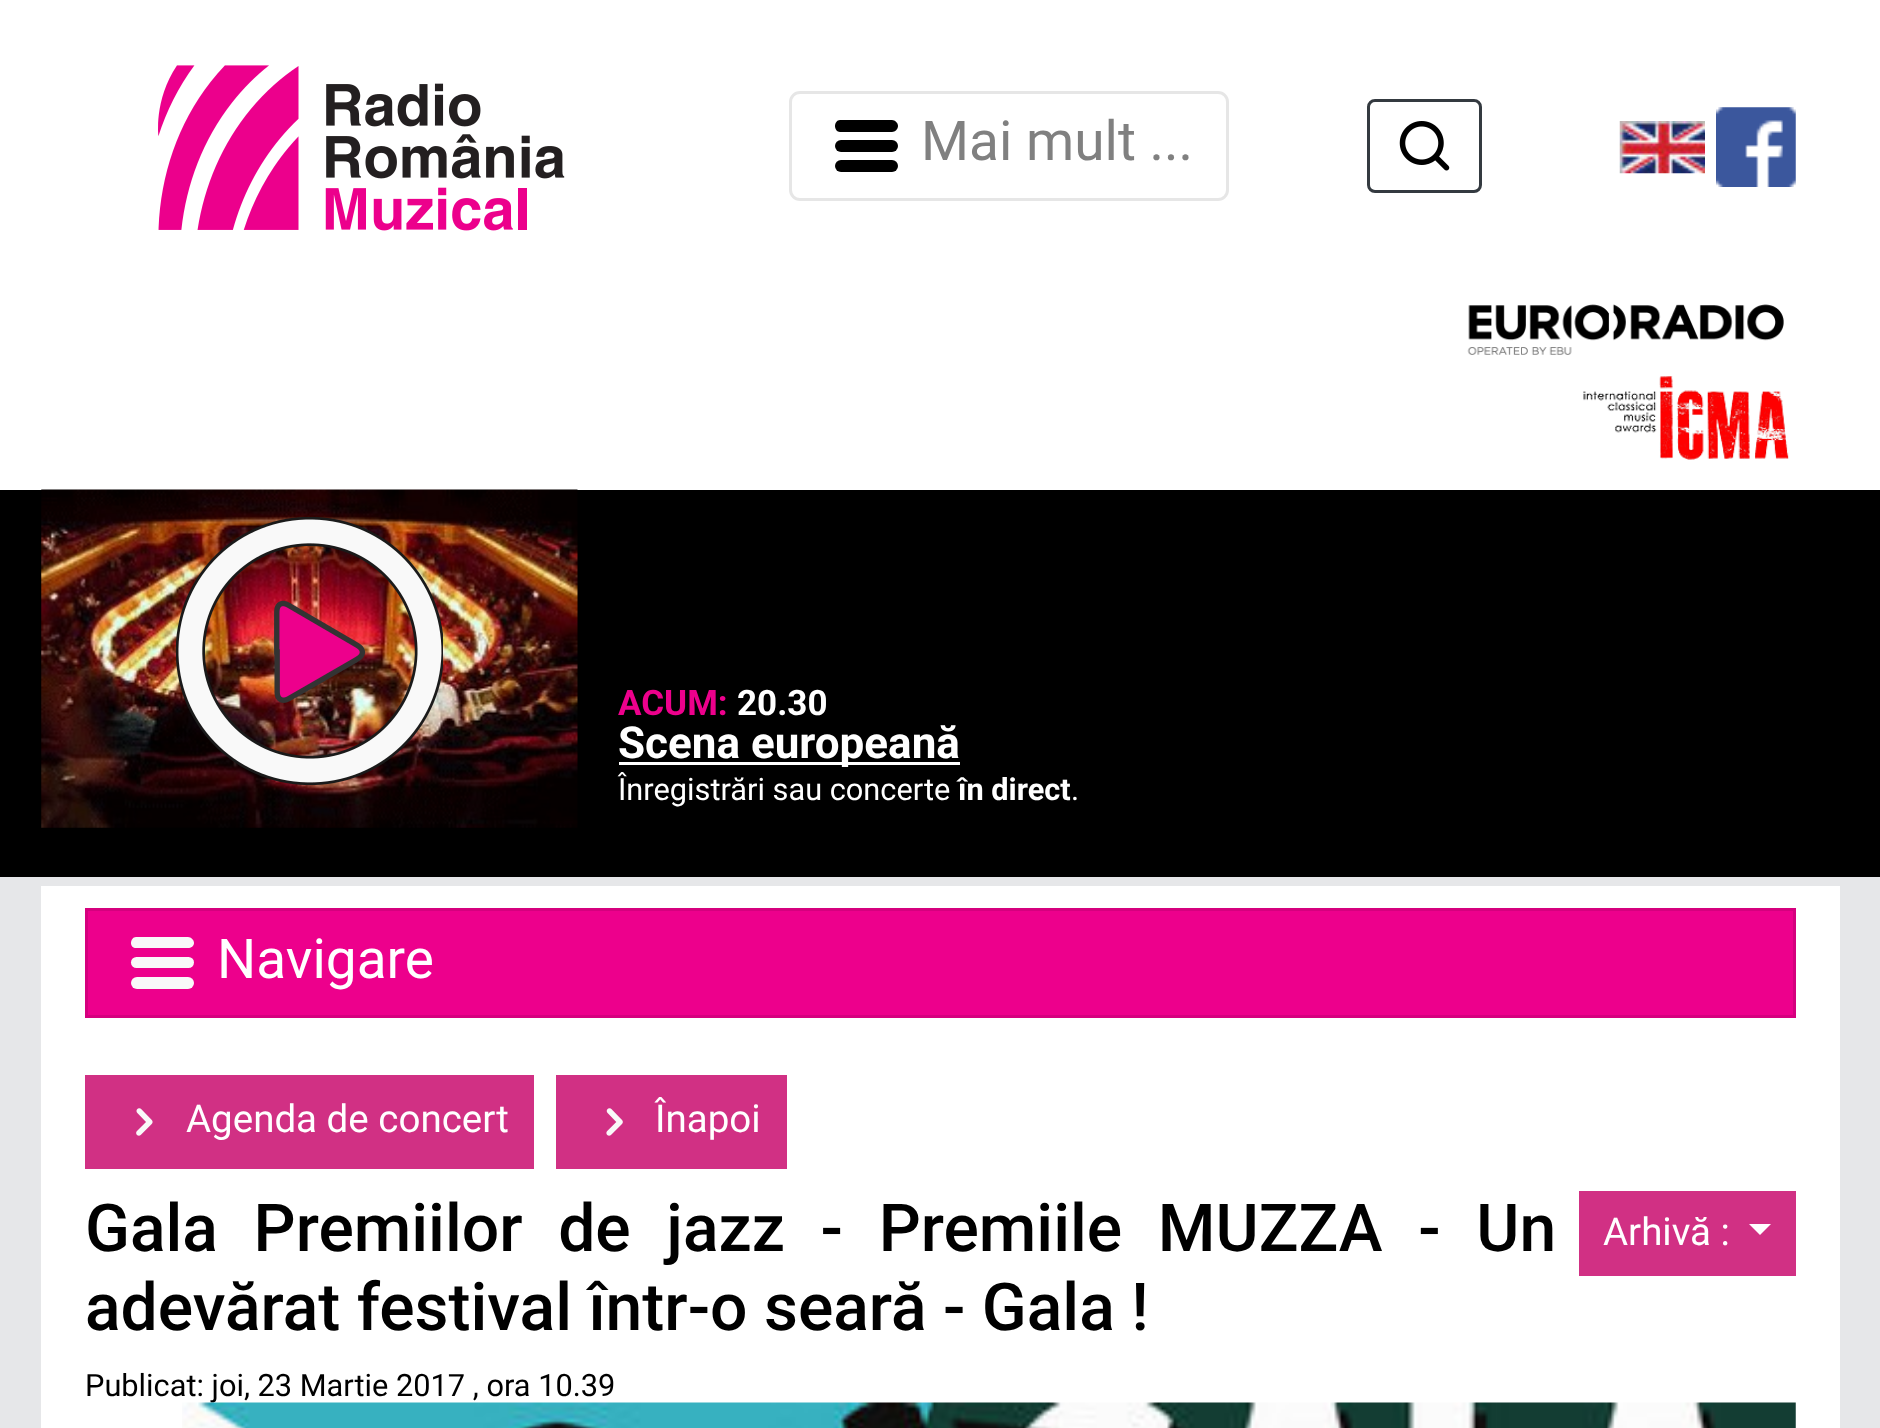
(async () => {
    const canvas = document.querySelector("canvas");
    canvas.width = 1880;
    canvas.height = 1428;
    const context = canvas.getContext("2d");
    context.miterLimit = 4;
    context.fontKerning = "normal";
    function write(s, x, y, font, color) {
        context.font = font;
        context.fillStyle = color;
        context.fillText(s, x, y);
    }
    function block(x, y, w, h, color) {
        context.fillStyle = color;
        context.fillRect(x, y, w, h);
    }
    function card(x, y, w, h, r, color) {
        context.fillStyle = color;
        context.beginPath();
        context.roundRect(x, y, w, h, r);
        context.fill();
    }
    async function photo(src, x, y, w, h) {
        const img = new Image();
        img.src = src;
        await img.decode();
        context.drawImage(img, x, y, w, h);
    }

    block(0, 0, 1880, 1428, "rgb(230, 231, 233)");
    block(0, 0, 1880, 490, "rgb(255, 255, 255)");
    await photo("media/1.png", 158, 65, 407, 166);
    context.beginPath();
    context.roundRect(790.5, 92.5, 437, 107, 9.5);
    context.strokeStyle = "rgb(230, 230, 230)";
    context.lineWidth = 3;
    context.stroke();
    context.fillStyle = "rgb(0, 0, 0)";
    context.beginPath();
    context.moveTo(840, 132);
    context.lineTo(892, 132);
    context.bezierCurveTo(895, 132, 898, 129, 898, 126);
    context.bezierCurveTo(898, 123, 895, 120, 892, 120);
    context.lineTo(840, 120);
    context.bezierCurveTo(837, 120, 835, 123, 835, 126);
    context.bezierCurveTo(835, 129, 837, 132, 840, 132);
    context.closePath();
    context.fill();
    card(835, 140, 63, 12, 6, "rgb(0, 0, 0)");
    card(835, 160, 63, 12, 6, "rgb(0, 0, 0)");
    write("Mai mult ...", 921, 160, "55px Roboto", "rgb(128, 128, 128)");
    context.beginPath();
    context.roundRect(1368.5, 100.5, 112, 91, 6.5);
    context.strokeStyle = "rgb(52, 58, 64)";
    context.stroke();
    await photo("media/2.png", 1399, 121, 51, 50);
    await photo("media/3.png", 1619, 121, 86, 53);
    await photo("media/4.png", 1716, 107, 80, 80);
    await photo("media/5.png", 1467, 304, 317, 51);
    await photo("media/6.png", 1583, 376, 206, 84);
    block(0, 490, 1880, 387, "rgb(0, 0, 0)");
    await photo("media/7.png", 41, 489, 537, 339);
    await photo("media/8.png", 176, 517, 267, 269);
    write("ACUM:", 618, 715, "bold 35px Roboto", "rgb(237, 0, 140)");
    write("20.30", 737, 715, "bold 35px Roboto", "rgb(255, 255, 255)");
    block(619, 762, 341, 3, "rgb(255, 255, 255)");
    write("Scena europeană", 618, 758, "bold 44px Roboto", "rgb(255, 255, 255)");
    write("Înregistrări sau concerte", 618, 800, "30.75px Roboto", "rgb(255, 255, 255)");
    write("în direct", 958, 800, "bold 30.75px Roboto", "rgb(255, 255, 255)");
    write(".", 1071, 800, "30.75px Roboto", "rgb(255, 255, 255)");
    block(41, 886, 1799, 542, "rgb(255, 255, 255)");
    context.fillStyle = "rgb(237, 0, 140)";
    context.beginPath();
    context.rect(86.5, 909.5, 1708, 107);
    context.fill();
    context.strokeStyle = "rgb(213, 0, 126)";
    context.stroke();
    context.fillStyle = "rgb(249, 249, 249)";
    context.beginPath();
    context.moveTo(136, 948);
    context.lineTo(188, 948);
    context.bezierCurveTo(191, 948, 194, 946, 194, 943);
    context.bezierCurveTo(194, 940, 191, 937, 188, 937);
    context.lineTo(136, 937);
    context.bezierCurveTo(133, 937, 131, 940, 131, 943);
    context.bezierCurveTo(131, 946, 133, 948, 136, 948);
    context.closePath();
    context.fill();
    card(131, 957, 63, 11, 5.5, "rgb(249, 249, 249)");
    card(131, 977, 63, 12, 6, "rgb(249, 249, 249)");
    write("Navigare", 217, 978, "55px Roboto", "rgb(255, 255, 255)");
    block(85, 1075, 449, 94, "rgb(209, 48, 132)");
    await photo("media/9.png", 136, 1108, 17, 28);
    write("Agenda de concert", 186, 1132, "38.5px Roboto", "rgb(255, 255, 255)");
    block(556, 1075, 231, 94, "rgb(209, 48, 132)");
    await photo("media/10.png", 606, 1108, 17, 28);
    write("Înapoi", 655, 1132, "38.5px Roboto", "rgb(255, 255, 255)");
    context.wordSpacing = "19.25px";
    write("Gala Premiilor de jazz - Premiile MUZZA - Un", 85, 1251, "500 66px Roboto", "rgb(0, 0, 0)");
    context.wordSpacing = "0px";
    write("adevărat festival într-o seară - Gala !", 85, 1330, "500 66px Roboto", "rgb(0, 0, 0)");
    write("Publicat: joi, 23 Martie", 85, 1396, "30.75px Roboto", "rgb(0, 0, 0)");
    write("2017 , ora 10.39", 396, 1396, "30.75px Roboto", "rgb(0, 0, 0)");
    await photo("media/11.png", 182, 1402, 1614, 26);
    block(1579, 1191, 217, 85, "rgb(209, 48, 132)");
    write("Arhivă :", 1603, 1245, "38.5px Roboto", "rgb(255, 255, 255)");
    context.beginPath();
    context.moveTo(1749, 1224);
    context.lineTo(1771, 1224);
    context.lineTo(1760, 1235);
    context.closePath();
    context.fill();
})();
